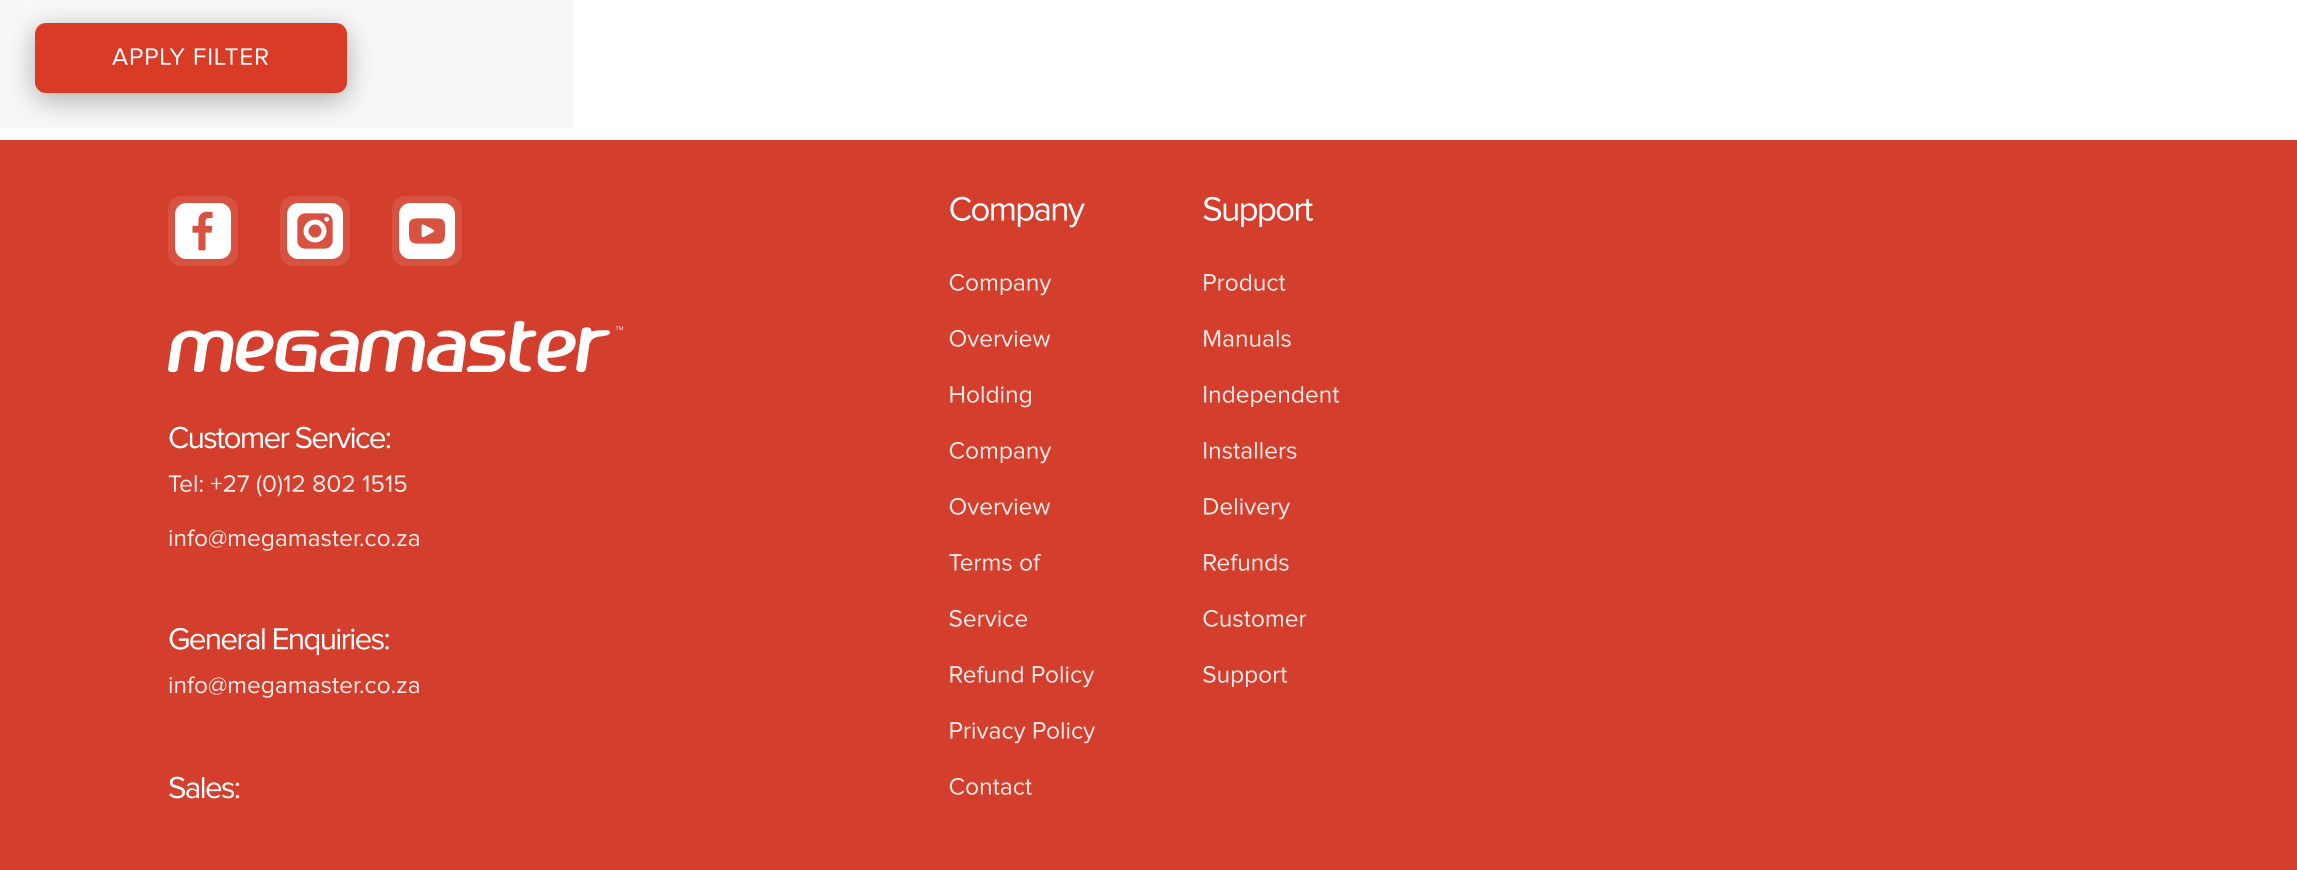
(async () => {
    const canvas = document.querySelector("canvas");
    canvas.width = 2297;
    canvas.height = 870;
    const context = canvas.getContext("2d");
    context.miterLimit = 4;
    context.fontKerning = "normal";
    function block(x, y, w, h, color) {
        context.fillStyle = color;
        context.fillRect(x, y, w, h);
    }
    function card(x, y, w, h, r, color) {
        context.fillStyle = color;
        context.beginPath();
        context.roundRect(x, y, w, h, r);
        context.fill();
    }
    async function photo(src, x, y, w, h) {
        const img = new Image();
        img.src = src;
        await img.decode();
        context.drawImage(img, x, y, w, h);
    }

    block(0, 0, 2297, 870, "rgb(255, 255, 255)");
    block(0, 0, 574, 128, "rgb(248, 248, 248)");
    context.fillStyle = "rgba(0, 0, 0, 0.3)";
    context.filter = "blur(14px)";
    context.beginPath();
    context.roundRect(35, 30, 312, 70, 11);
    context.fill();
    context.filter = "none";
    card(35, 23, 312, 70, 11, "rgb(218, 59, 39)");
    await photo("media/1.png", 112, 48, 156, 17);
    block(0, 140, 2297, 730, "rgb(212, 63, 45)");
    card(168, 196, 70, 70, 14, "rgb(216, 82, 66)");
    await photo("media/2.png", 175, 203, 56, 56);
    card(280, 196, 70, 70, 14, "rgb(216, 82, 66)");
    await photo("media/3.png", 287, 203, 56, 56);
    card(392, 196, 70, 70, 14, "rgb(216, 82, 66)");
    await photo("media/4.png", 399, 203, 56, 56);
    await photo("media/5.png", 168, 320, 455, 53);
    await photo("media/6.png", 169, 426, 222, 23);
    await photo("media/7.png", 168, 475, 239, 22);
    await photo("media/8.png", 169, 529, 250, 22);
    await photo("media/9.png", 169, 627, 220, 29);
    await photo("media/8.png", 169, 676, 250, 22);
    await photo("media/10.png", 169, 776, 71, 23);
    await photo("media/11.png", 950, 196, 135, 32);
    await photo("media/12.png", 949, 273, 103, 23);
    await photo("media/13.png", 949, 329, 102, 18);
    await photo("media/14.png", 950, 386, 81, 22);
    await photo("media/12.png", 949, 441, 103, 23);
    await photo("media/13.png", 949, 497, 102, 18);
    await photo("media/15.png", 949, 553, 93, 18);
    await photo("media/16.png", 949, 609, 79, 18);
    await photo("media/17.png", 950, 665, 144, 23);
    await photo("media/18.png", 950, 722, 145, 22);
    await photo("media/19.png", 949, 777, 83, 18);
    await photo("media/20.png", 1203, 196, 111, 31);
    await photo("media/21.png", 1204, 274, 82, 17);
    await photo("media/22.png", 1204, 330, 87, 17);
    await photo("media/23.png", 1204, 386, 136, 21);
    await photo("media/24.png", 1204, 442, 93, 17);
    await photo("media/25.png", 1204, 498, 86, 22);
    await photo("media/26.png", 1204, 554, 85, 17);
    await photo("media/27.png", 1203, 609, 104, 18);
    await photo("media/28.png", 1203, 665, 85, 22);
})();
